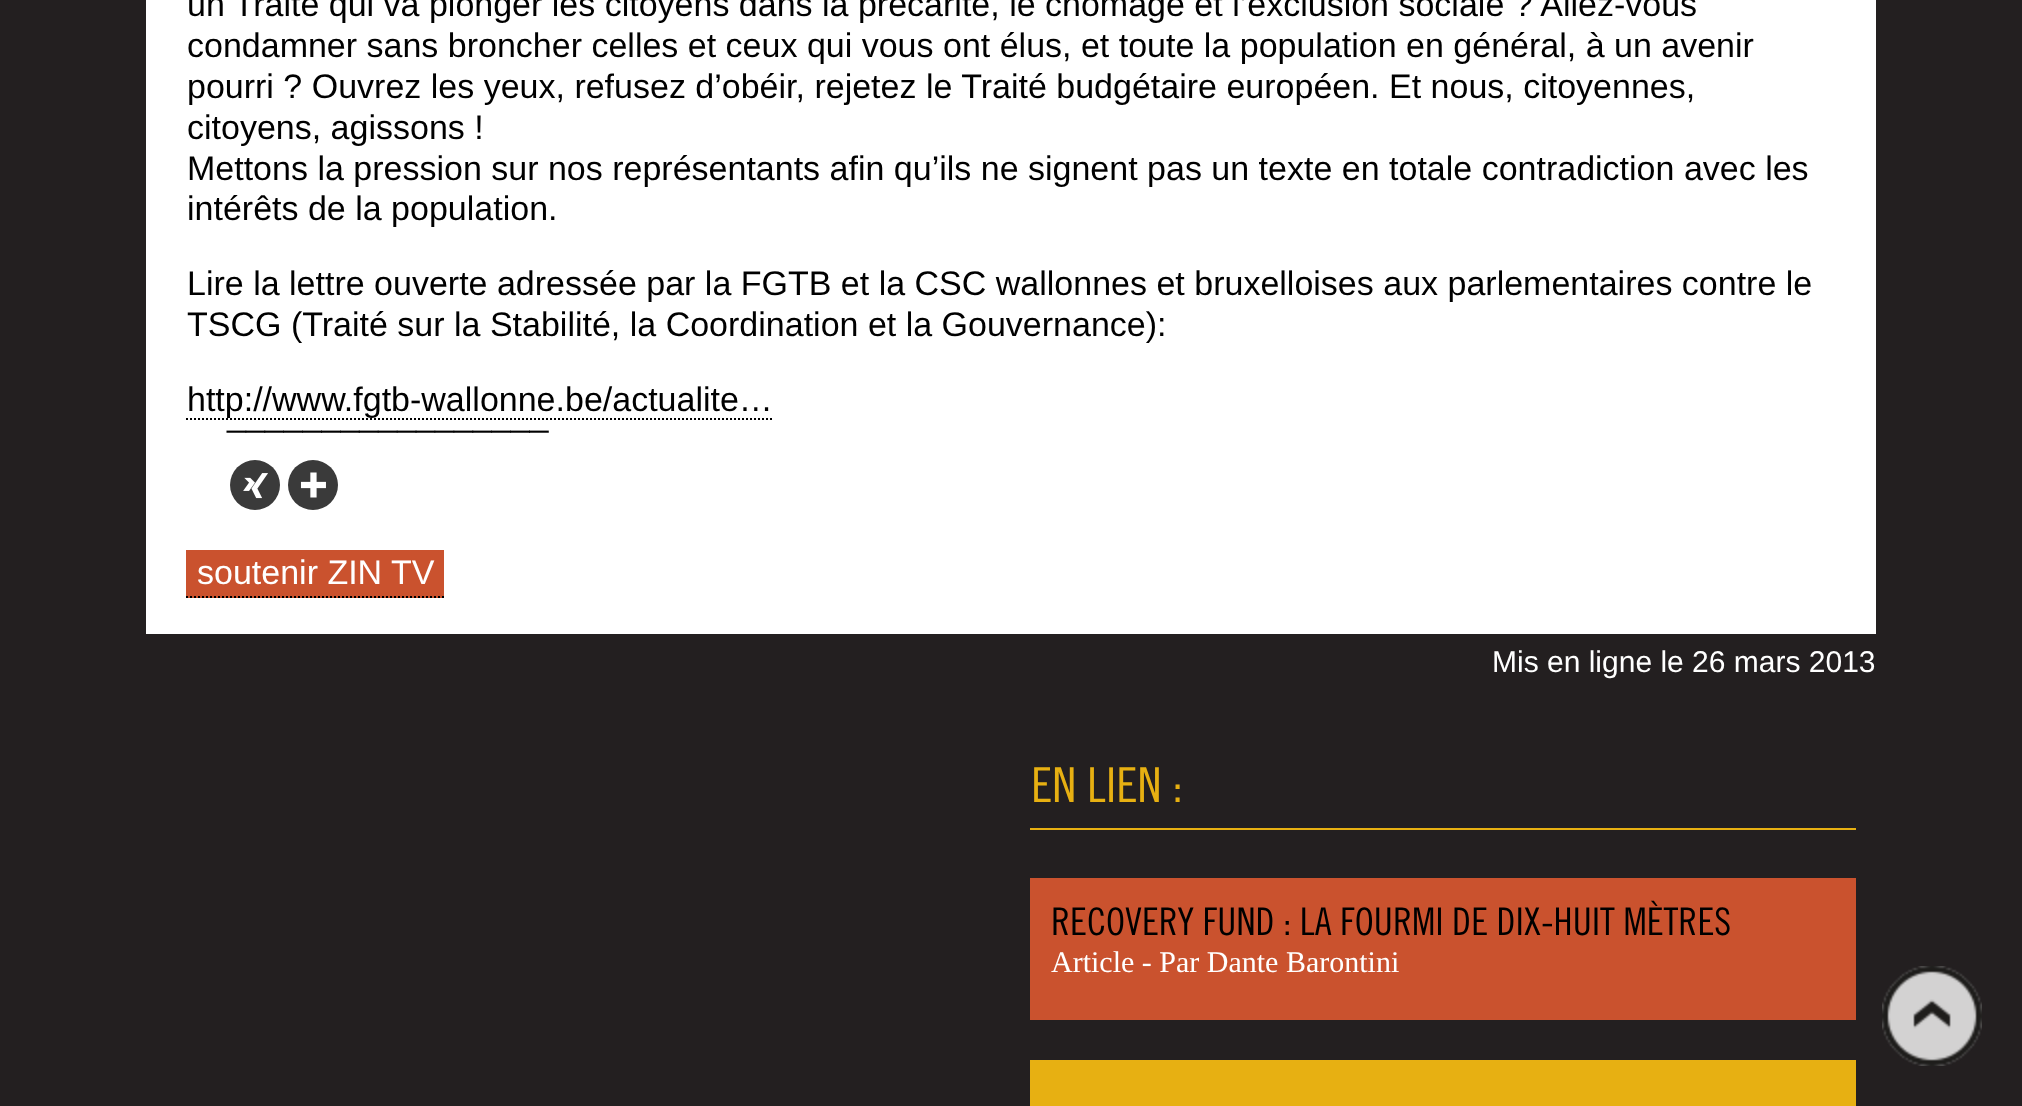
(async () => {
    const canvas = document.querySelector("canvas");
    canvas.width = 2022;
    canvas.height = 1106;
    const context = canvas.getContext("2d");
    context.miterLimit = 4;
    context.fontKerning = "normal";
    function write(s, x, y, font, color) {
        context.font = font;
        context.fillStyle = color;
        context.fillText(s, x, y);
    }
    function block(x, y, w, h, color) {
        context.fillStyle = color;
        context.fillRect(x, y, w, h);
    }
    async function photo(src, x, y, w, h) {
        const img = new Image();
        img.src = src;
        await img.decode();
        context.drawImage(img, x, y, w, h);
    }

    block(0, 0, 2022, 1106, "rgb(35, 31, 32)");
    block(146, 0, 1730, 634, "rgb(255, 255, 255)");
    write("un Traité qui va plonger les citoyens dans la précarité, le chômage et l’exclusion sociale ? Allez-vous", 187, 16, "34px Liberation Sans", "rgb(0, 0, 0)");
    write("condamner sans broncher celles et ceux qui vous ont élus, et toute la population en général, à un avenir", 187, 57, "34px Liberation Sans", "rgb(0, 0, 0)");
    write("pourri ? Ouvrez les yeux, refusez d’obéir, rejetez le Traité budgétaire européen. Et nous, citoyennes,", 187, 98, "34px Liberation Sans", "rgb(0, 0, 0)");
    write("citoyens, agissons !", 187, 139, "34px Liberation Sans", "rgb(0, 0, 0)");
    write("Mettons la pression sur nos représentants afin qu’ils ne signent pas un texte en totale contradiction avec les", 187, 180, "34px Liberation Sans", "rgb(0, 0, 0)");
    write("intérêts de la population.", 187, 220, "34px Liberation Sans", "rgb(0, 0, 0)");
    write("Lire la lettre ouverte adressée par la FGTB et la CSC wallonnes et bruxelloises aux parlementaires contre le", 187, 295, "34px Liberation Sans", "rgb(0, 0, 0)");
    write("TSCG (Traité sur la Stabilité, la Coordination et la Gouvernance):", 187, 336, "34px Liberation Sans", "rgb(0, 0, 0)");
    context.beginPath();
    context.moveTo(186, 419);
    context.lineTo(772, 419);
    context.strokeStyle = "rgb(0, 0, 0)";
    context.lineWidth = 2;
    context.setLineDash([2, 2]);
    context.stroke();
    write("http://www.fgtb-wallonne.be/actualite…", 187, 411, "34px Liberation Sans", "rgb(0, 0, 0)");
    write("_________________", 227, 426, "34px Liberation Sans", "rgb(0, 0, 0)");
    context.fillStyle = "rgb(58, 58, 58)";
    context.beginPath();
    context.arc(255, 485, 25, 0, Math.PI * 2);
    context.fill();
    await photo("media/1.png", 243, 473, 25, 26);
    context.beginPath();
    context.arc(313, 485, 25, 0, Math.PI * 2);
    context.fill();
    await photo("media/2.png", 300, 472, 26, 26);
    block(186, 550, 258, 48, "rgb(202, 82, 46)");
    write("soutenir ZIN TV", 197, 584, "34px Liberation Sans", "rgb(255, 255, 255)");
    context.beginPath();
    context.moveTo(186, 597);
    context.lineTo(444, 597);
    context.stroke();
    write("Mis en ligne le 26 mars 2013", 1492, 672, "30px Liberation Sans", "rgb(255, 255, 255)");
    block(1030, 828, 826, 2, "rgb(231, 176, 18)");
    write("EN LIEN :", 1031, 802, "500 48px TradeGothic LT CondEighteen", "rgb(231, 176, 18)");
    block(1030, 878, 826, 142, "rgb(202, 82, 46)");
    write("RECOVERY FUND : LA FOURMI DE DIX-HUIT MÈTRES", 1051, 935, "500 38.1px TradeGothic LT CondEighteen", "rgb(0, 0, 0)");
    write("Article - Par Dante Barontini", 1051, 972, "30px Liberation Serif", "rgb(255, 255, 255)");
    block(1030, 1060, 826, 46, "rgb(231, 176, 18)");
    await photo("media/3.png", 1882, 966, 100, 100);
})();
